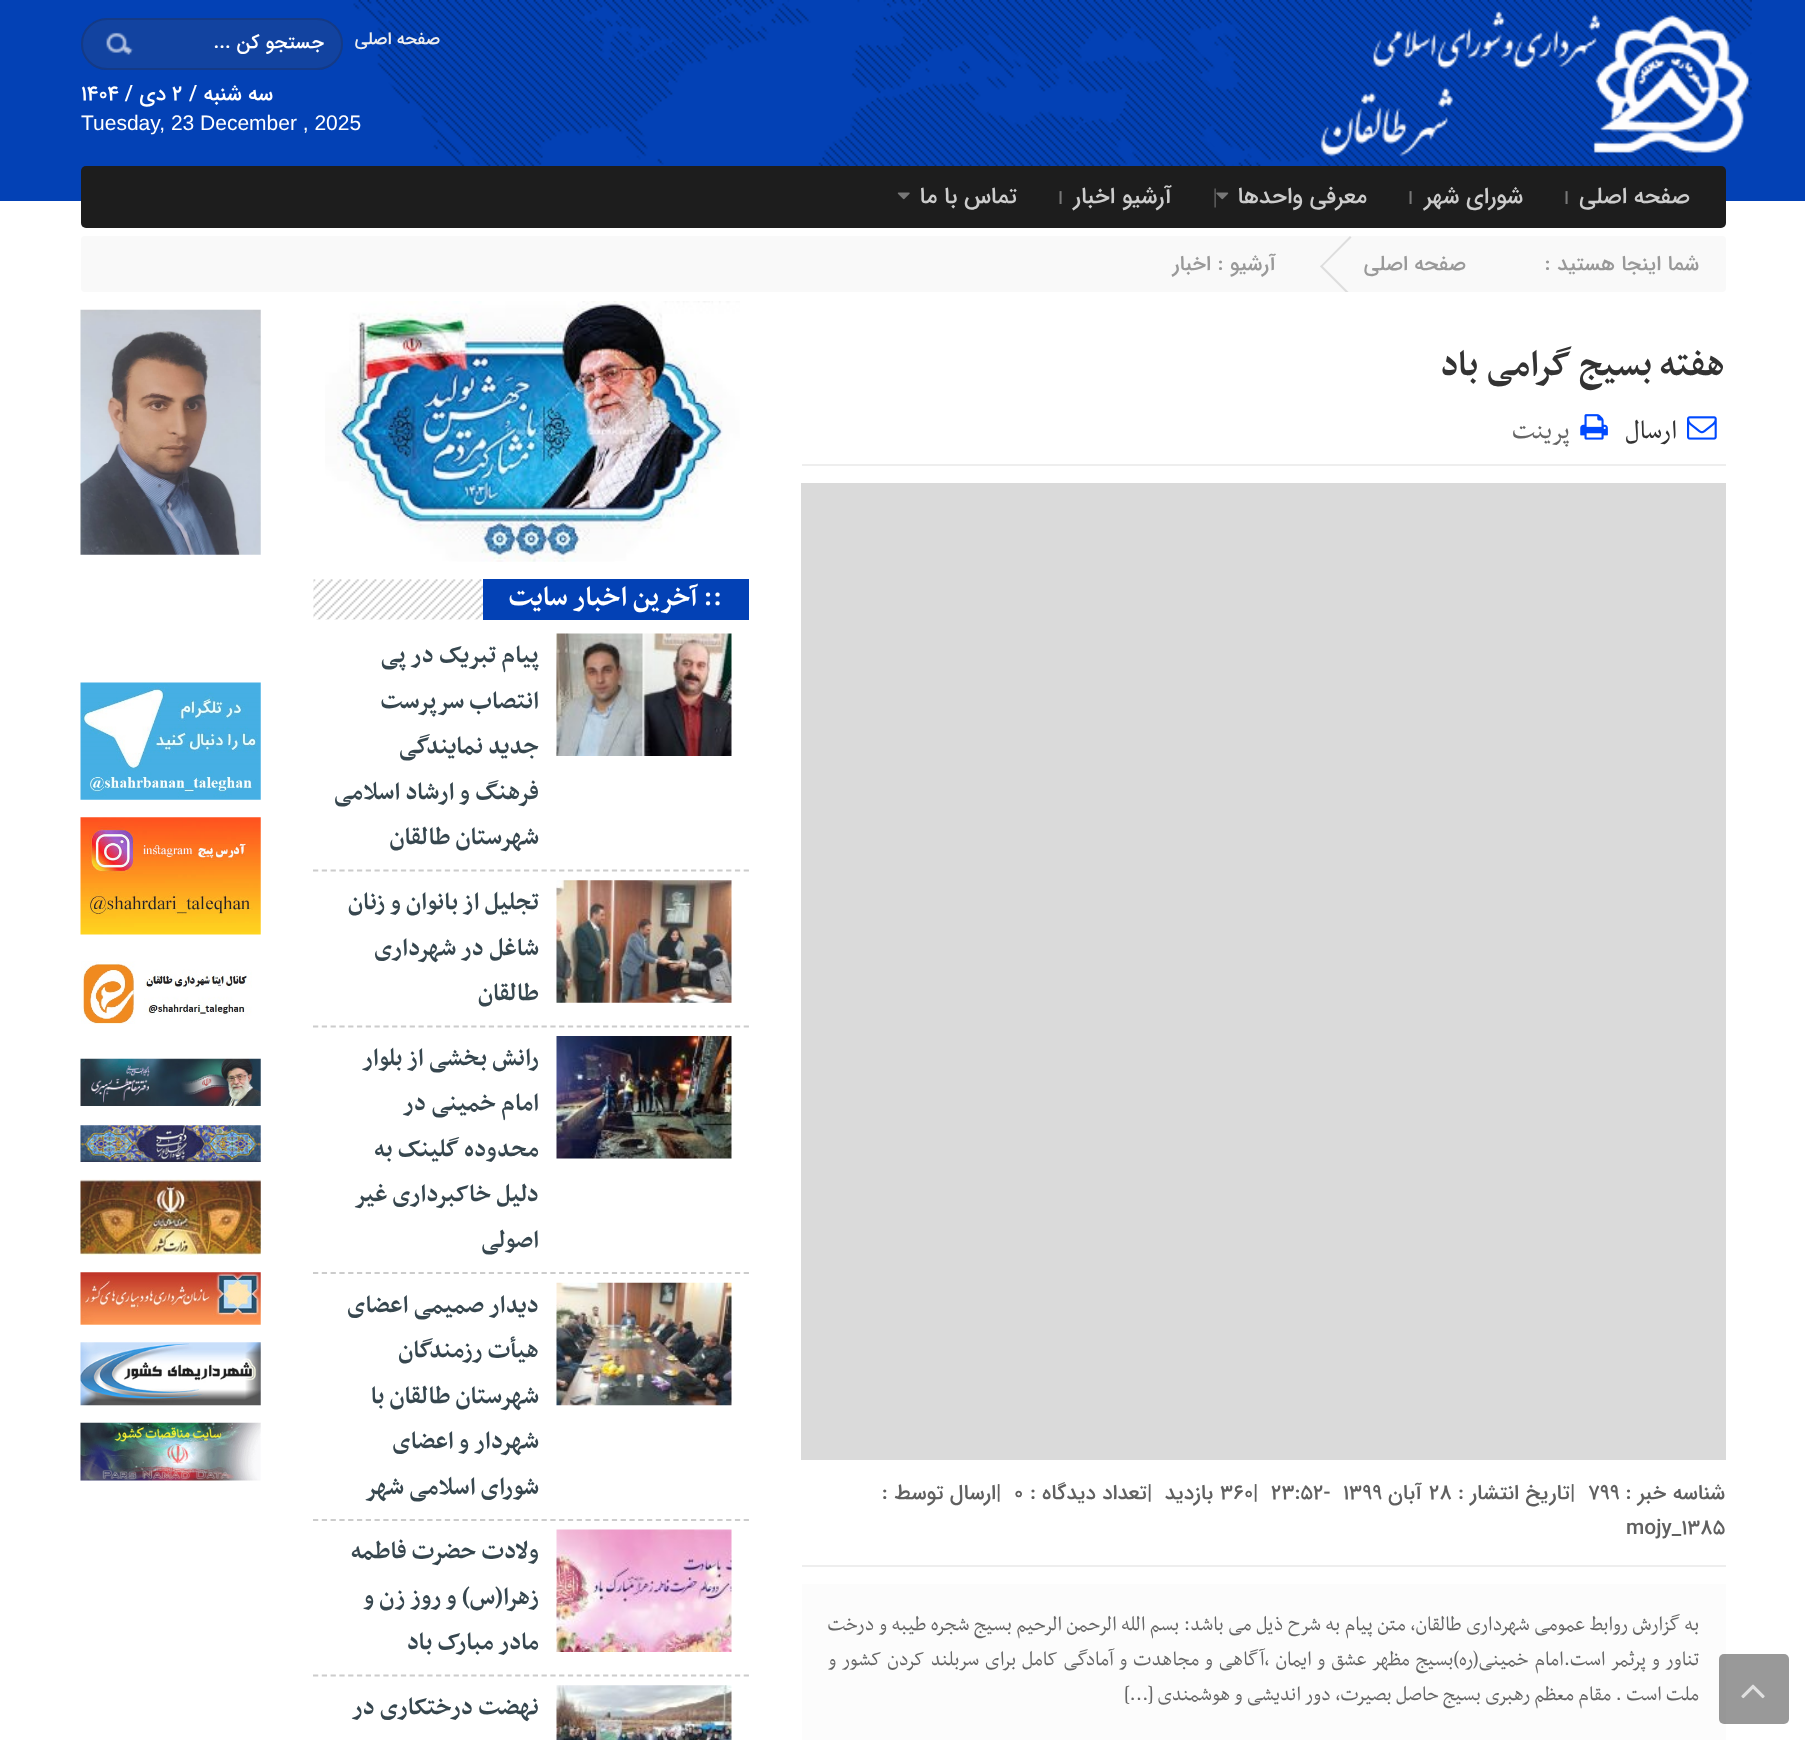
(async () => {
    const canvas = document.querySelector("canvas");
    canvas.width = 1805;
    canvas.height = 1740;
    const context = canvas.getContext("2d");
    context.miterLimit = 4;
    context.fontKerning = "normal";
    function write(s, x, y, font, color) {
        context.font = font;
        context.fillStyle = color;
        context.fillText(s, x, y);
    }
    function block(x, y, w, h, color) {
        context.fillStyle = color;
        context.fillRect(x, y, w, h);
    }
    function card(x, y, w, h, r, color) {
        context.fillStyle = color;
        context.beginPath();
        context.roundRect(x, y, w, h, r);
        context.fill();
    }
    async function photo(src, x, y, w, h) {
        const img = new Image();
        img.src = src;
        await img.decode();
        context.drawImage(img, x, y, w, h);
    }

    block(0, 0, 1805, 1740, "rgb(255, 255, 255)");
    block(0, 0, 1805, 201, "rgb(3, 65, 181)");
    await photo("media/1.png", 353, 0, 1399, 166);
    await photo("media/2.png", 1320, 10, 429, 147);
    context.direction = "rtl";
    write("صفحه اصلی", 440, 44, "500 17.5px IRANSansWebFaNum", "rgb(238, 238, 238)");
    card(81, 18, 262, 52, 26, "rgb(18, 67, 160)");
    await photo("media/3.png", 106, 32, 28, 23);
    context.beginPath();
    context.roundRect(82, 19, 260, 50, 25);
    context.strokeStyle = "rgba(36, 27, 27, 0.2)";
    context.lineWidth = 2;
    context.stroke();
    write("جستجو کن ...", 324, 48, "500 19.25px IRANSansWebFaNum", "rgb(255, 255, 255)");
    write("سه شنبه /", 273, 100, "500 21px IRANSansWebFaNum", "rgb(255, 255, 255)");
    context.direction = "ltr";
    write("۲", 172, 100, "500 21px IRANSansWebFaNum", "rgb(255, 255, 255)");
    context.direction = "rtl";
    write("دی /", 166, 100, "500 21px IRANSansWebFaNum", "rgb(255, 255, 255)");
    context.direction = "ltr";
    write("۱۴۰۴", 81, 100, "500 21px IRANSansWebFaNum", "rgb(255, 255, 255)");
    write("Tuesday, 23 December , 2025", 81, 130, "21px Liberation Sans", "rgb(255, 255, 255)");
    card(81, 166, 1645, 62, 5, "rgb(29, 29, 29)");
    context.direction = "rtl";
    write("صفحه اصلی", 1690, 203, "500 22.75px IRANSansWebFaNum", "rgb(204, 204, 204)");
    context.direction = "ltr";
    write("|", 1562, 203, "bold 21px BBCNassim", "rgb(119, 119, 119)");
    context.direction = "rtl";
    write("شورای شهر", 1523, 203, "500 22.75px IRANSansWebFaNum", "rgb(204, 204, 204)");
    context.direction = "ltr";
    write("|", 1406, 203, "bold 21px BBCNassim", "rgb(119, 119, 119)");
    context.direction = "rtl";
    write("معرفی واحدها", 1367, 203, "500 22.75px IRANSansWebFaNum", "rgb(204, 204, 204)");
    await photo("media/4.png", 1216, 192, 13, 8);
    context.direction = "ltr";
    write("|", 1213, 203, "21px Liberation Serif", "rgb(119, 119, 119)");
    context.direction = "rtl";
    write("آرشیو اخبار", 1172, 203, "500 22.75px IRANSansWebFaNum", "rgb(204, 204, 204)");
    context.direction = "ltr";
    write("|", 1056, 203, "bold 21px BBCNassim", "rgb(119, 119, 119)");
    context.direction = "rtl";
    write("تماس با ما", 1017, 203, "500 22.75px IRANSansWebFaNum", "rgb(204, 204, 204)");
    await photo("media/5.png", 897, 192, 13, 8);
    card(81, 236, 1645, 56, 4, "rgb(249, 249, 249)");
    write("شما اینجا هستید :", 1699, 270, "500 21px IRANSansWebFaNum", "rgb(153, 153, 153)");
    write("صفحه اصلی", 1466, 270, "500 21px IRANSansWebFaNum", "rgb(153, 153, 153)");
    context.fillStyle = "rgb(221, 221, 221)";
    context.beginPath();
    context.moveTo(1321.5, 265);
    context.lineTo(1348.5, 292);
    context.lineTo(1345.5, 292);
    context.lineTo(1320, 266.5);
    context.closePath();
    context.fill();
    context.beginPath();
    context.moveTo(1350, 236);
    context.lineTo(1351.5, 237.5);
    context.lineTo(1321.5, 267.5);
    context.lineTo(1320, 266.5);
    context.closePath();
    context.fill();
    write("آرشیو :", 1276, 270, "500 21px IRANSansWebFaNum", "rgb(153, 153, 153)");
    write("اخبار", 1211, 270, "500 21px IRANSansWebFaNum", "rgb(153, 153, 153)");
    block(802, 1584, 924, 156, "rgb(252, 252, 252)");
    card(1719, 1654, 70, 70, 5, "rgba(47, 46, 46, 0.49)");
    await photo("media/6.png", 1741, 1684, 24, 15);
    block(802, 464, 924, 2, "rgb(238, 238, 238)");
    write("هفته بسیج گرامی باد", 1725, 375, "bold 42px BBCNassim", "rgb(51, 51, 51)");
    await photo("media/7.png", 1687, 416, 30, 24);
    write("ارسال", 1677, 438, "30px BBCNassim", "rgb(51, 51, 51)");
    await photo("media/8.png", 1580, 414, 28, 26);
    write("پرینت", 1570, 438, "30px BBCNassim", "rgb(102, 102, 102)");
    block(801, 483, 925, 977, "rgb(218, 218, 218)");
    block(802, 1565, 924, 2, "rgb(238, 238, 238)");
    write("شناسه خبر :", 1725, 1499, "500 21px IRANSansWebFaNum", "rgb(96, 96, 96)");
    context.direction = "ltr";
    write("799", 1588, 1499, "500 21px IRANSansWebFaNum", "rgb(96, 96, 96)");
    write("|", 1570, 1499, "500 21px IRANSansWebFaNum", "rgb(96, 96, 96)");
    context.direction = "rtl";
    write("تاریخ انتشار :", 1570, 1499, "500 21px IRANSansWebFaNum", "rgb(96, 96, 96)");
    context.direction = "ltr";
    write("۲۸", 1429, 1499, "500 21px IRANSansWebFaNum", "rgb(96, 96, 96)");
    context.direction = "rtl";
    write("آبان", 1422, 1499, "500 21px IRANSansWebFaNum", "rgb(96, 96, 96)");
    context.direction = "ltr";
    write("۱۳۹۹", 1343, 1499, "500 21px IRANSansWebFaNum", "rgb(96, 96, 96)");
    write("۲۳:۵۲-", 1271, 1499, "500 21px IRANSansWebFaNum", "rgb(96, 96, 96)");
    write("360|", 1220, 1499, "500 21px IRANSansWebFaNum", "rgb(96, 96, 96)");
    context.direction = "rtl";
    write("بازدید", 1213, 1499, "500 21px IRANSansWebFaNum", "rgb(96, 96, 96)");
    context.direction = "ltr";
    write("|", 1147, 1499, "500 21px IRANSansWebFaNum", "rgb(96, 96, 96)");
    context.direction = "rtl";
    write("تعداد دیدگاه :", 1147, 1499, "500 21px IRANSansWebFaNum", "rgb(96, 96, 96)");
    context.direction = "ltr";
    write("0", 1014, 1499, "500 21px IRANSansWebFaNum", "rgb(96, 96, 96)");
    write("|", 996, 1499, "500 21px IRANSansWebFaNum", "rgb(96, 96, 96)");
    context.direction = "rtl";
    write("ارسال توسط :", 996, 1499, "500 21px IRANSansWebFaNum", "rgb(96, 96, 96)");
    context.direction = "ltr";
    write("mojy_1385", 1626, 1534, "500 21px IRANSansWebFaNum", "rgb(96, 96, 96)");
    context.wordSpacing = "0.25px";
    context.direction = "rtl";
    write("به گزارش روابط عمومی شهرداری طالقان، متن پیام به شرح ذیل می باشد: بسم الله الرحمن الرحیم بسیج شجره طیبه و درخت", 1699, 1630, "23.1px BBCNassim", "rgb(102, 102, 102)");
    context.wordSpacing = "1.5px";
    write("تناور و پرثمر است.امام خمینی(ره)بسیج مظهر عشق و ایمان ،آگاهی و مجاهدت و آمادگی کامل برای سربلند کردن کشور و", 1699, 1665, "23.1px BBCNassim", "rgb(102, 102, 102)");
    context.wordSpacing = "0px";
    write("ملت است . مقام معظم رهبری بسیج حاصل بصیرت، دور اندیشی و هوشمندی […]", 1699, 1700, "23.1px BBCNassim", "rgb(102, 102, 102)");
    await photo("media/9.png", 325, 301, 415, 261);
    await photo("media/10.png", 313, 579, 170, 41);
    block(483, 579, 266, 41, "rgb(3, 65, 181)");
    write(":: آخرین اخبار سایت", 722, 605, "bold 31.5px BBCNassim", "rgb(255, 255, 255)");
    context.beginPath();
    context.moveTo(313, 870.5);
    context.lineTo(749, 870.5);
    context.strokeStyle = "rgb(204, 204, 204)";
    context.lineWidth = 1.8;
    context.setLineDash([5.25, 3.54]);
    context.stroke();
    await photo("media/11.png", 556, 633, 176, 123);
    write("پیام تبریک در پی", 539, 662, "bold 28px BBCNassim", "rgb(55, 71, 79)");
    write("انتصاب سرپرست", 539, 708, "bold 28px BBCNassim", "rgb(55, 71, 79)");
    write("جدید نمایندگی", 539, 753, "bold 28px BBCNassim", "rgb(55, 71, 79)");
    write("فرهنگ و ارشاد اسلامی", 539, 799, "bold 28px BBCNassim", "rgb(55, 71, 79)");
    write("شهرستان طالقان", 539, 844, "bold 28px BBCNassim", "rgb(55, 71, 79)");
    context.beginPath();
    context.moveTo(313, 1026.5);
    context.lineTo(749, 1026.5);
    context.stroke();
    await photo("media/12.png", 556, 880, 176, 123);
    write("تجلیل از بانوان و زنان", 539, 909, "bold 28px BBCNassim", "rgb(55, 71, 79)");
    write("شاغل در شهرداری", 539, 955, "bold 28px BBCNassim", "rgb(55, 71, 79)");
    write("طالقان", 539, 1000, "bold 28px BBCNassim", "rgb(55, 71, 79)");
    context.beginPath();
    context.moveTo(313, 1273);
    context.lineTo(749, 1273);
    context.stroke();
    await photo("media/13.png", 556, 1036, 176, 123);
    write("رانش بخشی از بلوار", 539, 1065, "bold 28px BBCNassim", "rgb(55, 71, 79)");
    write("امام خمینی در", 539, 1110, "bold 28px BBCNassim", "rgb(55, 71, 79)");
    write("محدوده گلینک به", 539, 1156, "bold 28px BBCNassim", "rgb(55, 71, 79)");
    write("دلیل خاکبرداری غیر", 539, 1201, "bold 28px BBCNassim", "rgb(55, 71, 79)");
    write("اصولی", 539, 1247, "bold 28px BBCNassim", "rgb(55, 71, 79)");
    context.beginPath();
    context.moveTo(313, 1520);
    context.lineTo(749, 1520);
    context.stroke();
    await photo("media/14.png", 556, 1282, 176, 124);
    write("دیدار صمیمی اعضای", 539, 1312, "bold 28px BBCNassim", "rgb(55, 71, 79)");
    write("هیأت رزمندگان", 539, 1357, "bold 28px BBCNassim", "rgb(55, 71, 79)");
    write("شهرستان طالقان با", 539, 1403, "bold 28px BBCNassim", "rgb(55, 71, 79)");
    write("شهردار و اعضای", 539, 1448, "bold 28px BBCNassim", "rgb(55, 71, 79)");
    write("شورای اسلامی شهر", 539, 1494, "bold 28px BBCNassim", "rgb(55, 71, 79)");
    context.beginPath();
    context.moveTo(313, 1675.5);
    context.lineTo(749, 1675.5);
    context.stroke();
    await photo("media/15.png", 556, 1529, 176, 123);
    write("ولادت حضرت فاطمه", 539, 1558, "bold 28px BBCNassim", "rgb(55, 71, 79)");
    write("زهرا(س) و روز زن و", 539, 1604, "bold 28px BBCNassim", "rgb(55, 71, 79)");
    write("مادر مبارک باد", 539, 1649, "bold 28px BBCNassim", "rgb(55, 71, 79)");
    await photo("media/16.png", 556, 1685, 176, 55);
    write("نهضت درختکاری در", 539, 1714, "bold 28px BBCNassim", "rgb(55, 71, 79)");
    await photo("media/17.png", 80, 309, 181, 246);
    await photo("media/18.png", 80, 682, 181, 118);
    await photo("media/19.png", 80, 817, 181, 118);
    await photo("media/20.png", 81, 961, 171, 63);
    await photo("media/21.png", 80, 1058, 181, 48);
    await photo("media/22.png", 80, 1125, 181, 37);
    await photo("media/23.png", 80, 1179, 181, 76);
    await photo("media/24.png", 80, 1272, 181, 53);
    await photo("media/25.png", 80, 1342, 181, 64);
    await photo("media/26.png", 80, 1422, 181, 59);
})();
